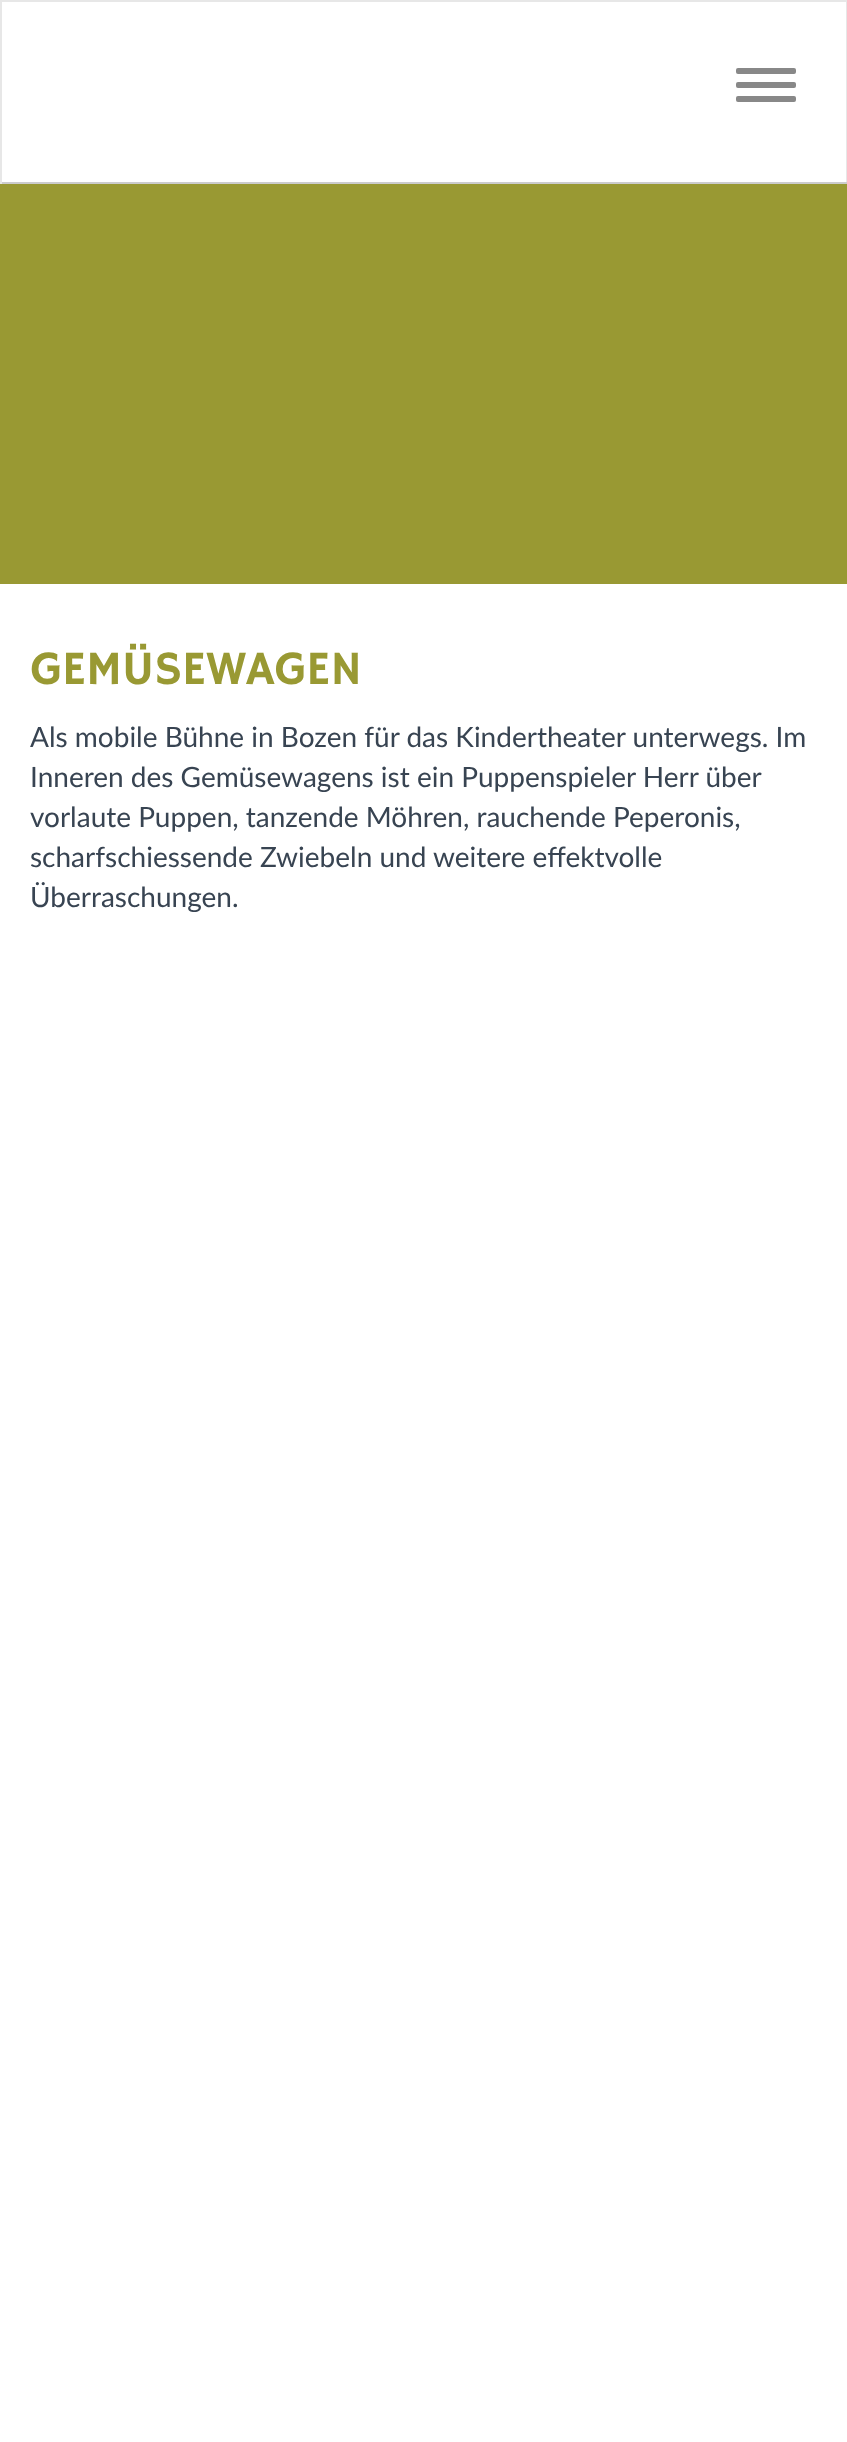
(async () => {
    const canvas = document.querySelector("canvas");
    canvas.width = 847;
    canvas.height = 2442;
    const context = canvas.getContext("2d");
    context.miterLimit = 4;
    context.fontKerning = "normal";
    function write(s, x, y, font, color) {
        context.font = font;
        context.fillStyle = color;
        context.fillText(s, x, y);
    }
    function block(x, y, w, h, color) {
        context.fillStyle = color;
        context.fillRect(x, y, w, h);
    }
    function card(x, y, w, h, r, color) {
        context.fillStyle = color;
        context.beginPath();
        context.roundRect(x, y, w, h, r);
        context.fill();
    }

    block(0, 0, 847, 2442, "rgb(255, 255, 255)");
    block(0, 0, 847, 2, "rgb(231, 231, 231)");
    block(846, 0, 1, 184, "rgb(231, 231, 231)");
    block(0, 182, 847, 2, "rgb(204, 204, 204)");
    block(0, 0, 2, 184, "rgb(231, 231, 231)");
    card(736, 68, 60, 6, 2, "rgb(136, 136, 136)");
    card(736, 82, 60, 6, 2, "rgb(136, 136, 136)");
    card(736, 96, 60, 6, 2, "rgb(136, 136, 136)");
    block(0, 184, 847, 400, "rgb(153, 153, 51)");
    write("GEMÜSEWAGEN", 30, 684, "48px Hammersmith One", "rgb(153, 153, 51)");
    write("Als mobile Bühne in Bozen für das Kindertheater unterwegs. Im", 30, 747, "28px Lato", "rgb(56, 68, 82)");
    write("Inneren des Gemüsewagens ist ein Puppenspieler Herr über", 30, 787, "28px Lato", "rgb(56, 68, 82)");
    write("vorlaute Puppen, tanzende Möhren, rauchende Peperonis,", 30, 827, "28px Lato", "rgb(56, 68, 82)");
    write("scharfschiessende Zwiebeln und weitere effektvolle", 30, 867, "28px Lato", "rgb(56, 68, 82)");
    write("Überraschungen.", 30, 907, "28px Lato", "rgb(56, 68, 82)");
})();
